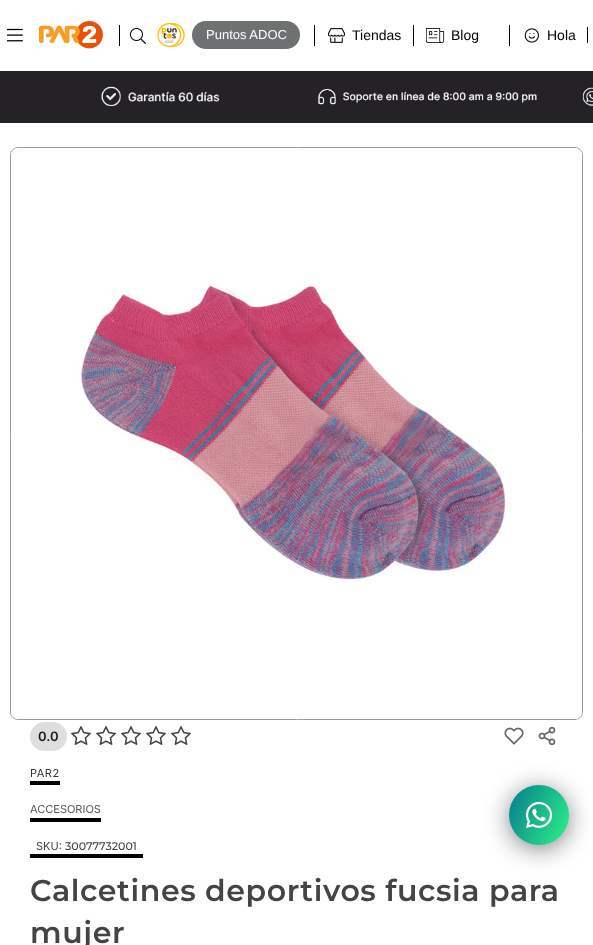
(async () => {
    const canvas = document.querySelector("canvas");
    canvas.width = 593;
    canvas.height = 945;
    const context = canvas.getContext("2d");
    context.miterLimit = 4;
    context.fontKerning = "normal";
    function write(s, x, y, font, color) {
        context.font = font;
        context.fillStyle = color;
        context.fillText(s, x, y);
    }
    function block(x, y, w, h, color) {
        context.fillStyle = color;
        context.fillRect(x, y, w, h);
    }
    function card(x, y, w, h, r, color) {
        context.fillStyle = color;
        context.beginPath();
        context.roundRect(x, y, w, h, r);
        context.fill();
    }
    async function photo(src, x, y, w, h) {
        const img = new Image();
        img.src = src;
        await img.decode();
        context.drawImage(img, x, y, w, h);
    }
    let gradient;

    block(0, 0, 593, 945, "rgb(255, 255, 255)");
    await photo("media/1.png", 7, 28, 16, 14);
    await photo("media/2.png", 39, 21, 64, 28);
    block(119, 25, 1, 21, "rgb(0, 0, 0)");
    await photo("media/3.png", 130, 28, 16, 16);
    await photo("media/4.png", 157, 23, 28, 24);
    card(192, 21, 108, 28, 14, "rgb(109, 113, 114)");
    write("Puntos ADOC", 206, 39, "13px Liberation Sans", "rgb(255, 255, 255)");
    block(314, 25, 1, 21, "rgb(0, 0, 0)");
    await photo("media/5.png", 328, 28, 17, 15);
    write("Tiendas", 352, 40, "14px Liberation Sans", "rgb(0, 0, 0)");
    block(413, 25, 1, 21, "rgb(0, 0, 0)");
    await photo("media/6.png", 426, 28, 19, 15);
    write("Blog", 451, 40, "14px Liberation Sans", "rgb(0, 0, 0)");
    block(509, 25, 1, 21, "rgb(0, 0, 0)");
    await photo("media/7.png", 524, 28, 15, 15);
    write("Hola", 547, 40, "14px Liberation Sans", "rgb(0, 0, 0)");
    block(587, 27, 1, 16, "rgb(0, 0, 0)");
    block(0, 71, 593, 52, "rgb(36, 34, 39)");
    await photo("media/8.png", 101, 86, 120, 22);
    await photo("media/9.png", 317, 89, 221, 17);
    await photo("media/10.png", 582, 87, 11, 19);
    context.beginPath();
    context.roundRect(10.5, 147.5, 572, 572, 7.5);
    context.strokeStyle = "rgb(156, 156, 156)";
    context.stroke();
    await photo("media/11.png", 11, 148, 571, 571);
    card(30, 722, 37, 29, 14.5, "rgb(222, 222, 222)");
    write("0.0", 38, 741, "600 13px Inter", "rgb(24, 24, 24)");
    await photo("media/12.png", 71, 726, 20, 19);
    await photo("media/12.png", 96, 726, 20, 19);
    await photo("media/12.png", 121, 726, 20, 19);
    await photo("media/12.png", 146, 726, 20, 19);
    await photo("media/12.png", 171, 726, 20, 19);
    await photo("media/13.png", 504, 727, 20, 18);
    await photo("media/14.png", 538, 726, 18, 20);
    context.letterSpacing = "0.5px";
    write("PAR2", 30, 777, "11px Inter", "rgb(51, 51, 51)");
    block(30, 781, 30, 4, "rgb(0, 0, 0)");
    context.letterSpacing = "0px";
    write("ACCESORIOS", 30, 813, "11px Inter", "rgb(85, 85, 85)");
    block(30, 818, 71, 4, "rgb(0, 0, 0)");
    write("SKU:", 36, 850, "11px Inter", "rgb(68, 68, 68)");
    write("30077732001", 65, 850, "500 11px Montserrat", "rgb(68, 68, 68)");
    block(30, 854, 113, 4, "rgb(0, 0, 0)");
    context.letterSpacing = "0.6px";
    write("Calcetines deportivos fucsia para", 30, 901, "600 30px Montserrat", "rgb(68, 68, 68)");
    write("mujer", 30, 943, "600 30px Montserrat", "rgb(68, 68, 68)");
    context.fillStyle = "rgba(2, 6, 16, 0.5)";
    context.filter = "blur(12px)";
    context.beginPath();
    context.roundRect(509, 789, 60, 60, 30);
    context.fill();
    context.filter = "none";
    gradient = context.createLinearGradient(503, 798, 575, 832);
    gradient.addColorStop(0, "rgb(4, 124, 141)");
    gradient.addColorStop(1, "rgb(47, 242, 137)");
    context.fillStyle = gradient;
    context.beginPath();
    context.arc(539, 815, 30, 0, Math.PI * 2);
    context.fill();
    await photo("media/15.png", 526, 801, 27, 27);
})();
